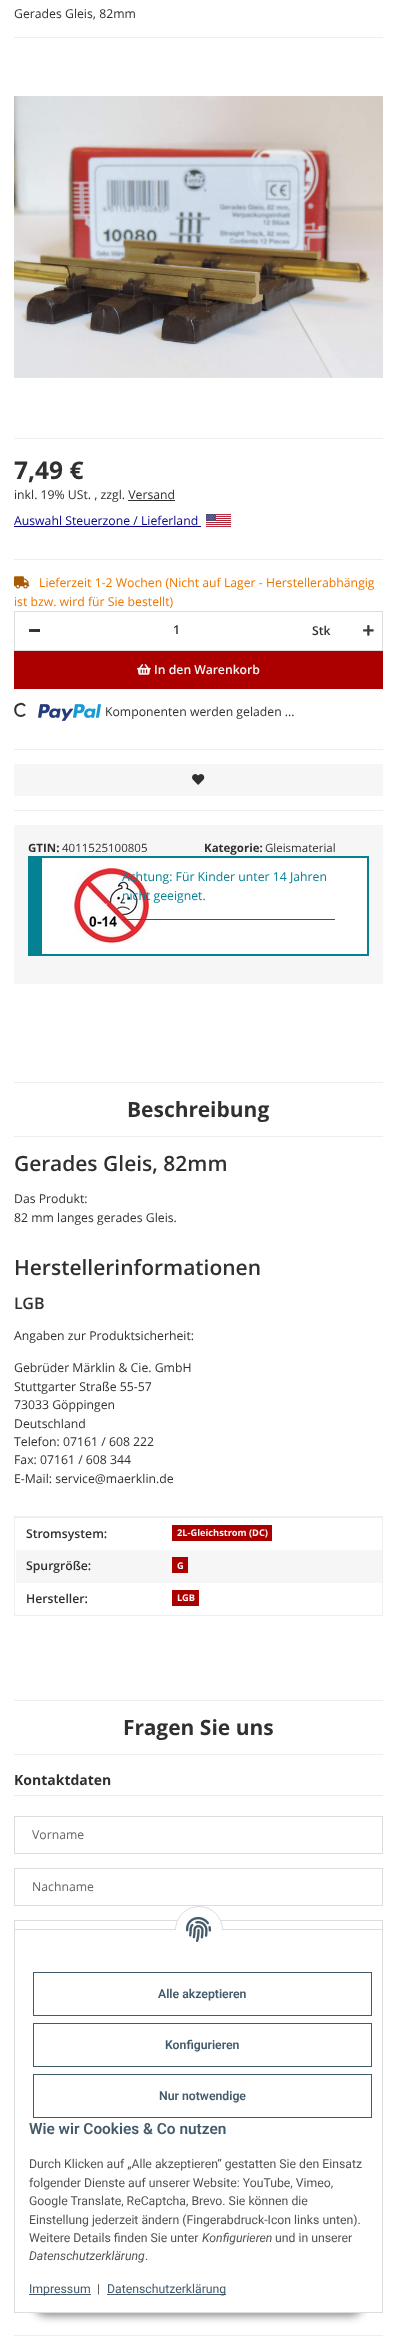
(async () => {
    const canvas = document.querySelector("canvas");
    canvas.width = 397;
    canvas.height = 2341;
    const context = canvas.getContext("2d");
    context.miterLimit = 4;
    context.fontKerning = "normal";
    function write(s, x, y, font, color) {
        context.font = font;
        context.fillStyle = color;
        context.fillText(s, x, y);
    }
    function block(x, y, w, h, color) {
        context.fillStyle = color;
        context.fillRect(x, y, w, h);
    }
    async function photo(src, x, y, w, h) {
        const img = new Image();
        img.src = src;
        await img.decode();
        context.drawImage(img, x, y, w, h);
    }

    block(0, 0, 397, 2341, "rgb(255, 255, 255)");
    write("Gerades Gleis, 82mm", 14, 18, "12.25px Open Sans", "rgb(48, 48, 48)");
    block(14, 37, 369, 1, "rgb(238, 238, 238)");
    await photo("media/1.png", 14, 96, 369, 282);
    block(14, 438, 369, 1, "rgb(238, 238, 238)");
    write("7,49 €", 14, 479, "bold 24.5px Open Sans", "rgb(48, 48, 48)");
    write("inkl. 19% USt. , zzgl. Versand", 14, 499, "12.25px Open Sans", "rgb(48, 48, 48)");
    block(128, 500, 47, 1, "rgb(48, 48, 48)");
    write("Auswahl Steuerzone / Lieferland", 14, 525, "12.25px Open Sans", "rgb(9, 2, 136)");
    block(14, 526, 187, 1, "rgb(9, 2, 136)");
    await photo("media/2.png", 206, 514, 25, 13);
    block(14, 559, 369, 1, "rgb(238, 238, 238)");
    await photo("media/3.png", 14, 576, 16, 13);
    write("Lieferzeit 1-2 Wochen (Nicht auf Lager - Herstellerabhängig", 39, 587, "12.25px Open Sans", "rgb(238, 118, 0)");
    write("ist bzw. wird für Sie bestellt)", 14, 606, "12.25px Open Sans", "rgb(238, 118, 0)");
    context.strokeStyle = "rgb(221, 221, 221)";
    context.strokeRect(14.5, 611.5, 368, 39);
    block(29, 629, 11, 3, "rgb(48, 48, 48)");
    block(14, 651, 369, 38, "rgb(172, 0, 0)");
    context.beginPath();
    context.moveTo(25, 714);
    context.bezierCurveTo(24, 715.5, 22.5, 716, 21, 716);
    context.bezierCurveTo(14, 716, 13, 705.5, 20, 704);
    context.bezierCurveTo(22, 703.5, 24, 704.5, 25, 706);
    context.strokeStyle = "rgb(48, 48, 48)";
    context.lineWidth = 2;
    context.stroke();
    await photo("media/6.png", 38, 704, 63, 17);
    context.save();
    context.beginPath();
    context.rect(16, 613, 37, 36);
    context.clip();
    context.beginPath();
    context.moveTo(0, 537);
    context.lineTo(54, 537);
    context.lineTo(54, 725);
    context.lineTo(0, 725);
    context.closePath();
    context.moveTo(-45.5, 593);
    context.lineTo(-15, 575.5);
    context.lineTo(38.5, 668.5);
    context.lineTo(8.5, 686);
    context.closePath();
    context.clip("evenodd");
    context.fillStyle = "rgba(255, 255, 255, 0.5)";
    context.filter = "blur(13px)";
    context.beginPath();
    context.rect(-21, 577, 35, 108);
    context.fill();
    context.filter = "none";
    context.restore();
    write("1", 173, 634, "600 12.25px Open Sans", "rgb(48, 48, 48)");
    await photo("media/4.png", 363, 625, 11, 11);
    context.save();
    context.beginPath();
    context.rect(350, 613, 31, 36);
    context.clip();
    context.beginPath();
    context.moveTo(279, 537);
    context.lineTo(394, 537);
    context.lineTo(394, 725);
    context.lineTo(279, 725);
    context.closePath();
    context.moveTo(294.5, 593);
    context.lineTo(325, 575.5);
    context.lineTo(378.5, 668.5);
    context.lineTo(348.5, 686);
    context.closePath();
    context.clip("evenodd");
    context.fillStyle = "rgba(255, 255, 255, 0.5)";
    context.filter = "blur(13px)";
    context.beginPath();
    context.rect(319, 577, 35, 108);
    context.fill();
    context.filter = "none";
    context.restore();
    write("Stk", 312, 635, "600 12.25px Open Sans", "rgb(48, 48, 48)");
    await photo("media/5.png", 137, 664, 14, 11);
    write("In den Warenkorb", 154, 674, "600 12.25px Open Sans", "rgb(246, 246, 246)");
    write("Komponenten werden geladen ...", 105, 716, "12.25px Open Sans", "rgb(48, 48, 48)");
    block(14, 749, 369, 1, "rgb(238, 238, 238)");
    block(14, 810, 369, 1, "rgb(238, 238, 238)");
    block(14, 764, 369, 32, "rgb(246, 246, 246)");
    await photo("media/7.png", 192, 774, 13, 11);
    block(14, 825, 369, 159, "rgb(246, 246, 246)");
    write("GTIN:", 28, 852, "bold 11.5px Open Sans", "rgb(48, 48, 48)");
    write("4011525100805", 62, 852, "11.5px Open Sans", "rgb(48, 48, 48)");
    write("Kategorie:", 204, 852, "bold 11.5px Open Sans", "rgb(48, 48, 48)");
    write("Gleismaterial", 265, 852, "11.5px Open Sans", "rgb(48, 48, 48)");
    block(42, 858, 325, 96, "rgb(255, 255, 255)");
    block(42, 856, 327, 2, "rgb(5, 129, 148)");
    block(367, 856, 2, 100, "rgb(5, 129, 148)");
    block(42, 954, 327, 2, "rgb(5, 129, 148)");
    block(28, 856, 14, 100, "rgb(5, 129, 148)");
    await photo("media/8.png", 74, 868, 75, 75);
    write("Achtung: Für Kinder unter 14 Jahren", 122, 881, "12.25px Open Sans", "rgb(5, 129, 148)");
    write("nicht geeignet.", 122, 900, "12.25px Open Sans", "rgb(5, 129, 148)");
    block(122, 919, 213, 1, "rgb(4, 108, 123)");
    block(14, 1082, 369, 1, "rgb(238, 238, 238)");
    block(14, 1136, 369, 1, "rgb(238, 238, 238)");
    write("Beschreibung", 127, 1117, "bold 21px Open Sans", "rgb(48, 48, 48)");
    write("Gerades Gleis, 82mm", 14, 1171, "600 21px Open Sans", "rgb(48, 48, 48)");
    write("Das Produkt:", 14, 1203, "12.25px Open Sans", "rgb(48, 48, 48)");
    write("82 mm langes gerades Gleis.", 14, 1222, "12.25px Open Sans", "rgb(48, 48, 48)");
    write("Herstellerinformationen", 14, 1275, "600 21px Open Sans", "rgb(48, 48, 48)");
    write("LGB", 14, 1309, "600 16px Open Sans", "rgb(48, 48, 48)");
    write("Angaben zur Produktsicherheit:", 14, 1340, "12.25px Open Sans", "rgb(48, 48, 48)");
    write("Gebrüder Märklin & Cie. GmbH", 14, 1372, "12.25px Open Sans", "rgb(48, 48, 48)");
    write("Stuttgarter Straße 55-57", 14, 1391, "12.25px Open Sans", "rgb(48, 48, 48)");
    write("73033 Göppingen", 14, 1409, "12.25px Open Sans", "rgb(48, 48, 48)");
    write("Deutschland", 14, 1428, "12.25px Open Sans", "rgb(48, 48, 48)");
    write("Telefon: 07161 / 608 222", 14, 1446, "12.25px Open Sans", "rgb(48, 48, 48)");
    write("Fax: 07161 / 608 344", 14, 1464, "12.25px Open Sans", "rgb(48, 48, 48)");
    write("E-Mail: service@maerklin.de", 14, 1483, "12.25px Open Sans", "rgb(48, 48, 48)");
    block(14, 1516, 369, 2, "rgb(238, 238, 238)");
    block(382, 1550, 1, 66, "rgb(238, 238, 238)");
    block(382, 1517, 1, 34, "rgb(238, 238, 238)");
    block(14, 1615, 369, 1, "rgb(238, 238, 238)");
    block(14, 1550, 1, 66, "rgb(238, 238, 238)");
    block(14, 1517, 1, 34, "rgb(238, 238, 238)");
    write("Stromsystem:", 26, 1538, "600 12.25px Open Sans", "rgb(48, 48, 48)");
    block(172, 1525, 100, 16, "rgb(172, 0, 0)");
    write("2L-Gleichstrom (DC)", 177, 1536, "bold 9.25px Open Sans", "rgb(246, 246, 246)");
    block(16, 1550, 366, 33, "rgb(246, 246, 246)");
    write("Spurgröße:", 26, 1570, "600 12.25px Open Sans", "rgb(48, 48, 48)");
    block(172, 1557, 16, 16, "rgb(172, 0, 0)");
    write("G", 177, 1569, "bold 9.25px Open Sans", "rgb(246, 246, 246)");
    write("Hersteller:", 26, 1603, "600 12.25px Open Sans", "rgb(48, 48, 48)");
    block(172, 1590, 27, 16, "rgb(172, 0, 0)");
    write("LGB", 177, 1601, "bold 9.25px Open Sans", "rgb(246, 246, 246)");
    block(14, 1700, 369, 1, "rgb(238, 238, 238)");
    block(14, 1754, 369, 1, "rgb(238, 238, 238)");
    write("Fragen Sie uns", 123, 1735, "bold 21px Open Sans", "rgb(48, 48, 48)");
    block(14, 1795, 369, 1, "rgb(235, 235, 235)");
    write("Kontaktdaten", 14, 1785, "bold 14px Open Sans", "rgb(48, 48, 48)");
    context.strokeStyle = "rgb(221, 221, 221)";
    context.lineWidth = 1;
    context.strokeRect(14.5, 1816.5, 368, 37);
    write("Vorname", 32, 1839, "12.25px Open Sans", "rgb(102, 102, 102)");
    context.strokeRect(14.5, 1868.5, 368, 37);
    write("Nachname", 32, 1891, "12.25px Open Sans", "rgb(102, 102, 102)");
    context.strokeRect(14.5, 1920.5, 368, 37);
    block(14, 2335, 369, 1, "rgb(238, 238, 238)");
    context.fillStyle = "rgba(0, 0, 0, 0.45)";
    context.filter = "blur(4.5px)";
    context.beginPath();
    context.roundRect(33, 2288, 331, 28, 14);
    context.fill();
    context.filter = "none";
    block(15, 1957, 367, 355, "rgb(255, 255, 255)");
    context.strokeRect(14.5, 1929.5, 368, 383);
    context.beginPath();
    context.arc(199, 1930, 23.5, 0, Math.PI * 2);
    context.fill();
    context.stroke();
    block(175, 1930, 48, 24, "rgb(255, 255, 255)");
    await photo("media/9.png", 186, 1917, 25, 25);
    context.strokeStyle = "rgb(67, 90, 107)";
    context.strokeRect(33.5, 1972.5, 338, 43);
    write("Alle akzeptieren", 158, 1998, "600 12.25px Roboto", "rgb(67, 90, 107)");
    context.strokeRect(33.5, 2023.5, 338, 43);
    write("Konfigurieren", 165, 2049, "600 12.25px Roboto", "rgb(67, 90, 107)");
    context.strokeRect(33.5, 2074.5, 338, 43);
    write("Nur notwendige", 159, 2100, "600 12.25px Roboto", "rgb(67, 90, 107)");
    write("Wie wir Cookies & Co nutzen", 29, 2134, "600 15.4px Roboto", "rgb(67, 90, 107)");
    write("Durch Klicken auf „Alle akzeptieren“ gestatten Sie den Einsatz", 29, 2168, "12.25px Roboto", "rgb(82, 82, 82)");
    write("folgender Dienste auf unserer Website: YouTube, Vimeo,", 29, 2187, "12.25px Roboto", "rgb(82, 82, 82)");
    write("Google Translate, ReCaptcha, Brevo. Sie können die", 29, 2205, "12.25px Roboto", "rgb(82, 82, 82)");
    write("Einstellung jederzeit ändern (Fingerabdruck-Icon links unten).", 29, 2224, "12.25px Roboto", "rgb(82, 82, 82)");
    write("Weitere Details finden Sie unter", 29, 2242, "12.25px Roboto", "rgb(82, 82, 82)");
    write("Konfigurieren", 202, 2242, "italic 12.25px Roboto", "rgb(82, 82, 82)");
    write("und in unserer", 275, 2242, "12.25px Roboto", "rgb(82, 82, 82)");
    write("Datenschutzerklärung", 29, 2260, "italic 12.25px Roboto", "rgb(82, 82, 82)");
    write(".", 145, 2260, "12.25px Roboto", "rgb(82, 82, 82)");
    block(29, 2294, 62, 1, "rgb(67, 90, 107)");
    write("Impressum", 29, 2293, "12.25px Roboto", "rgb(67, 90, 107)");
    write("|", 97, 2293, "12.25px Roboto", "rgb(82, 82, 82)");
    block(107, 2294, 119, 1, "rgb(67, 90, 107)");
    write("Datenschutzerklärung", 107, 2293, "12.25px Roboto", "rgb(67, 90, 107)");
})();
